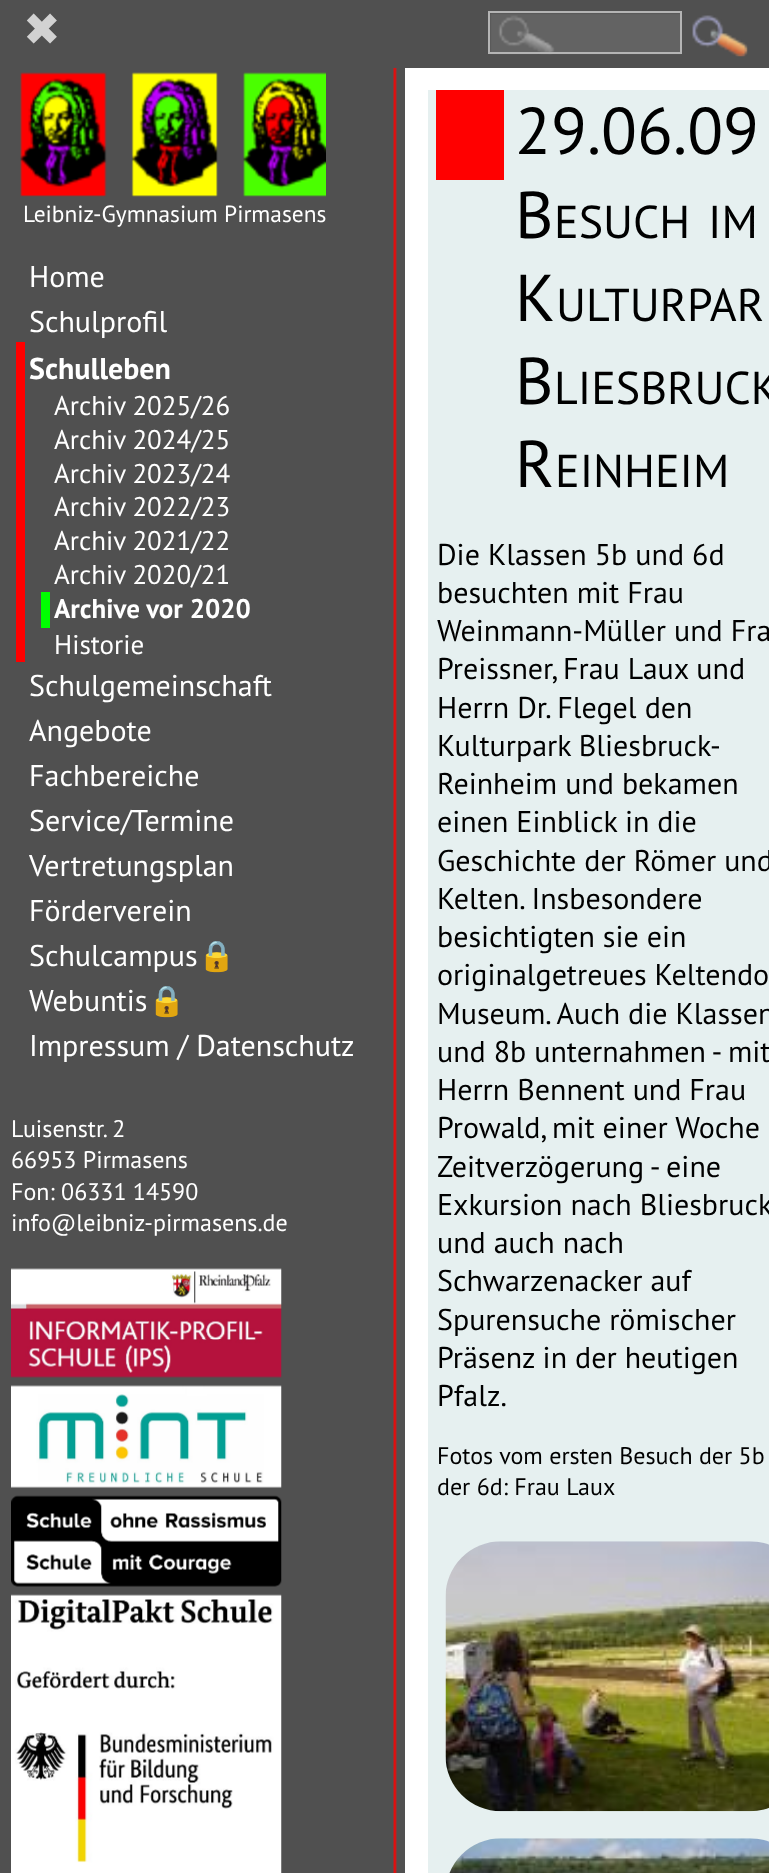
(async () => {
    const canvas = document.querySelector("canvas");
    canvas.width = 769;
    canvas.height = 1873;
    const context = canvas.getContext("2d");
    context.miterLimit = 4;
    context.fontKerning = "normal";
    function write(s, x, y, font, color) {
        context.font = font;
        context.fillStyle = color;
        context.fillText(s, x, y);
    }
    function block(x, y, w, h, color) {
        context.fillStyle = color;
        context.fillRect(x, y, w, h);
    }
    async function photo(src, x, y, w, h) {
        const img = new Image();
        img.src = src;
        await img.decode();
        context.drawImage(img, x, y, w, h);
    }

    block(0, 0, 769, 1873, "rgb(255, 255, 255)");
    block(0, 0, 769, 68, "rgb(80, 80, 80)");
    write("✖", 23, 45, "45px DejaVu Sans", "rgb(210, 210, 210)");
    await photo("media/1.png", 490, 13, 192, 42);
    context.strokeStyle = "rgb(180, 180, 180)";
    context.lineWidth = 2;
    context.strokeRect(489, 12, 192, 41);
    await photo("media/2.png", 692, 15, 56, 42);
    block(0, 68, 405, 1805, "rgb(80, 80, 80)");
    await photo("media/3.png", 393, 68, 4, 1805);
    await photo("media/4.png", 20, 72, 306, 125);
    write("Leibniz-Gymnasium Pirmasens", 23, 222, "23.4px PT Sans", "rgb(255, 255, 255)");
    write("Home", 29, 287, "30px PT Sans", "rgb(255, 255, 255)");
    write("Schulprofil", 29, 332, "30px PT Sans", "rgb(255, 255, 255)");
    block(16, 342, 9, 320, "rgb(255, 0, 0)");
    write("Schulleben", 29, 379, "bold 30px PT Sans", "rgb(255, 255, 255)");
    write("Archiv 2025/26", 54, 415, "27px PT Sans", "rgb(255, 255, 255)");
    write("Archiv 2024/25", 54, 449, "27px PT Sans", "rgb(255, 255, 255)");
    write("Archiv 2023/24", 54, 483, "27px PT Sans", "rgb(255, 255, 255)");
    write("Archiv 2022/23", 54, 516, "27px PT Sans", "rgb(255, 255, 255)");
    write("Archiv 2021/22", 54, 550, "27px PT Sans", "rgb(255, 255, 255)");
    write("Archiv 2020/21", 54, 584, "27px PT Sans", "rgb(255, 255, 255)");
    block(41, 592, 9, 36, "rgb(0, 255, 0)");
    write("Archive vor 2020", 54, 618, "bold 27px PT Sans", "rgb(255, 255, 255)");
    write("Historie", 54, 654, "27px PT Sans", "rgb(255, 255, 255)");
    write("Schulgemeinschaft", 29, 696, "30px PT Sans", "rgb(255, 255, 255)");
    write("Angebote", 29, 741, "30px PT Sans", "rgb(255, 255, 255)");
    write("Fachbereiche", 29, 786, "30px PT Sans", "rgb(255, 255, 255)");
    write("Service/Termine", 29, 831, "30px PT Sans", "rgb(255, 255, 255)");
    write("Vertretungsplan", 29, 876, "30px PT Sans", "rgb(255, 255, 255)");
    write("Förderverein", 29, 921, "30px PT Sans", "rgb(255, 255, 255)");
    write("Schulcampus", 29, 966, "30px PT Sans", "rgb(255, 255, 255)");
    write("🔒", 198, 966, "30px Noto Color Emoji", "rgb(255, 255, 255)");
    write("Webuntis", 29, 1011, "30px PT Sans", "rgb(255, 255, 255)");
    write("🔒", 148, 1011, "30px Noto Color Emoji", "rgb(255, 255, 255)");
    write("Impressum / Datenschutz", 29, 1056, "30px PT Sans", "rgb(255, 255, 255)");
    write("Luisenstr. 2", 11, 1137, "24px PT Sans", "rgb(255, 255, 255)");
    write("66953 Pirmasens", 11, 1168, "24px PT Sans", "rgb(255, 255, 255)");
    write("Fon: 06331 14590", 11, 1200, "24px PT Sans", "rgb(255, 255, 255)");
    write("info@leibniz-pirmasens.de", 11, 1231, "24px PT Sans", "rgb(255, 255, 255)");
    await photo("media/5.png", 11, 1268, 271, 110);
    await photo("media/6.png", 11, 1385, 271, 103);
    await photo("media/7.png", 11, 1495, 271, 92);
    await photo("media/8.png", 11, 1594, 271, 279);
    block(428, 90, 341, 1783, "rgb(230, 240, 240)");
    block(436, 90, 68, 90, "rgb(255, 0, 0)");
    write("29.06.09", 515, 154, "66px PT Sans", "rgb(0, 0, 0)");
    write("B", 515, 238, "66px PT Sans", "rgb(0, 0, 0)");
    write("ESUCH", 554, 238, "46px PT Sans", "rgb(0, 0, 0)");
    write("IM", 708, 238, "46px PT Sans", "rgb(0, 0, 0)");
    write("K", 515, 321, "66px PT Sans", "rgb(0, 0, 0)");
    write("ULTURPAR", 556, 321, "46px PT Sans", "rgb(0, 0, 0)");
    write("B", 515, 404, "66px PT Sans", "rgb(0, 0, 0)");
    write("LIESBRUCK", 554, 404, "46px PT Sans", "rgb(0, 0, 0)");
    write("R", 515, 487, "66px PT Sans", "rgb(0, 0, 0)");
    write("EINHEIM", 555, 487, "46px PT Sans", "rgb(0, 0, 0)");
    write("Die Klassen 5b und 6d", 437, 565, "30px PT Sans", "rgb(0, 0, 0)");
    write("besuchten mit Frau", 437, 603, "30px PT Sans", "rgb(0, 0, 0)");
    write("Weinmann-Müller und Fra", 437, 641, "30px PT Sans", "rgb(0, 0, 0)");
    write("Preissner, Frau Laux und", 437, 679, "30px PT Sans", "rgb(0, 0, 0)");
    write("Herrn Dr. Flegel den", 437, 718, "30px PT Sans", "rgb(0, 0, 0)");
    write("Kulturpark Bliesbruck-", 437, 756, "30px PT Sans", "rgb(0, 0, 0)");
    write("Reinheim und bekamen", 437, 794, "30px PT Sans", "rgb(0, 0, 0)");
    write("einen Einblick in die", 437, 832, "30px PT Sans", "rgb(0, 0, 0)");
    write("Geschichte der Römer und", 437, 871, "30px PT Sans", "rgb(0, 0, 0)");
    write("Kelten. Insbesondere", 437, 909, "30px PT Sans", "rgb(0, 0, 0)");
    write("besichtigten sie ein", 437, 947, "30px PT Sans", "rgb(0, 0, 0)");
    write("originalgetreues Keltendo", 437, 985, "30px PT Sans", "rgb(0, 0, 0)");
    write("Museum. Auch die Klassen", 437, 1024, "30px PT Sans", "rgb(0, 0, 0)");
    write("und 8b unternahmen - mit", 437, 1062, "30px PT Sans", "rgb(0, 0, 0)");
    write("Herrn Bennent und Frau", 437, 1100, "30px PT Sans", "rgb(0, 0, 0)");
    write("Prowald, mit einer Woche", 437, 1138, "30px PT Sans", "rgb(0, 0, 0)");
    write("Zeitverzögerung - eine", 437, 1177, "30px PT Sans", "rgb(0, 0, 0)");
    write("Exkursion nach Bliesbruck", 437, 1215, "30px PT Sans", "rgb(0, 0, 0)");
    write("und auch nach", 437, 1253, "30px PT Sans", "rgb(0, 0, 0)");
    write("Schwarzenacker auf", 437, 1291, "30px PT Sans", "rgb(0, 0, 0)");
    write("Spurensuche römischer", 437, 1330, "30px PT Sans", "rgb(0, 0, 0)");
    write("Präsenz in der heutigen", 437, 1368, "30px PT Sans", "rgb(0, 0, 0)");
    write("Pfalz.", 437, 1406, "30px PT Sans", "rgb(0, 0, 0)");
    write("Fotos vom ersten Besuch der 5b", 437, 1464, "24px PT Sans", "rgb(0, 0, 0)");
    write("der 6d: Frau Laux", 437, 1495, "24px PT Sans", "rgb(0, 0, 0)");
    await photo("media/9.png", 445, 1541, 324, 271);
    await photo("media/10.png", 449, 1838, 320, 35);
})();
